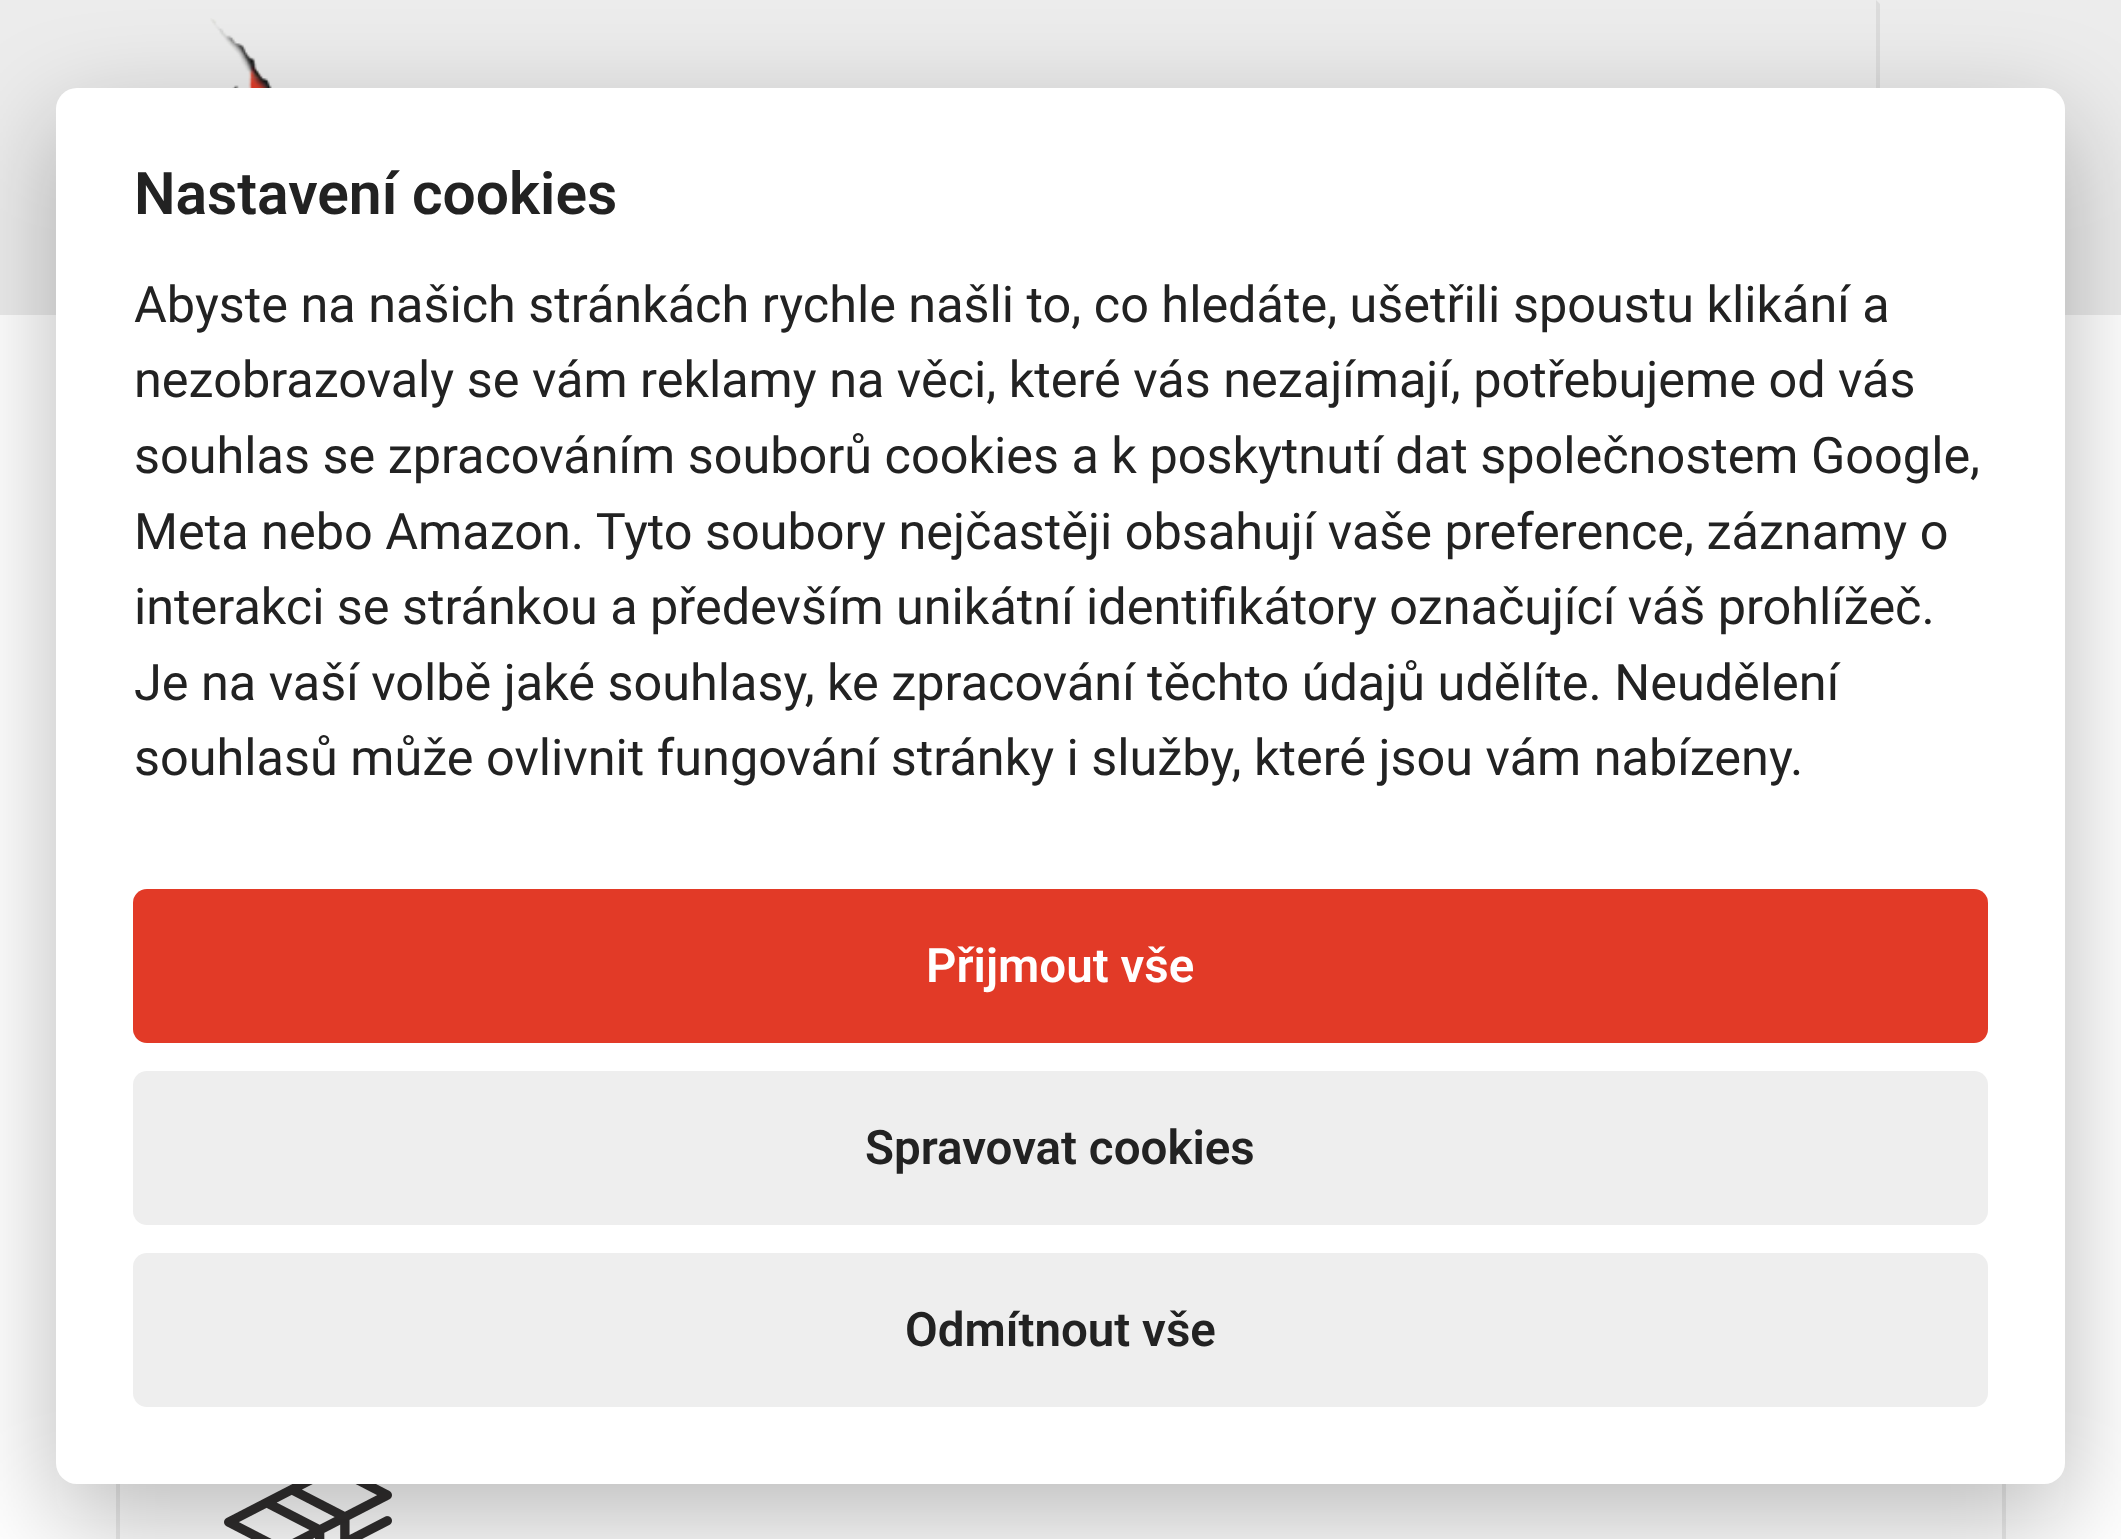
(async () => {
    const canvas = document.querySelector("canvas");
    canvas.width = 2121;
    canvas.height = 1539;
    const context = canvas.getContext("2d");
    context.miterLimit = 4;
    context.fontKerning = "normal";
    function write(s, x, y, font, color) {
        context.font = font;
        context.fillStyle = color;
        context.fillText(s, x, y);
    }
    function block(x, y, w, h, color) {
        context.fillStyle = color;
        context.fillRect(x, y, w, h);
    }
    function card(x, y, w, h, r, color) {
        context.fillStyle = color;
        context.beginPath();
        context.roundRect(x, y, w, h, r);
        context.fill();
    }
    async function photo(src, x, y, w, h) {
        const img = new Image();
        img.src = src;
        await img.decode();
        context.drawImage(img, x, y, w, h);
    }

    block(0, 0, 2121, 1539, "rgb(255, 255, 255)");
    block(0, 0, 2121, 315, "rgb(236, 236, 236)");
    await photo("media/1.png", 209, 18, 65, 70);
    context.fillStyle = "rgb(220, 220, 220)";
    context.beginPath();
    context.moveTo(1876, 315);
    context.lineTo(1876, 0);
    context.lineTo(1880, 4);
    context.lineTo(1880, 312);
    context.closePath();
    context.fill();
    context.strokeStyle = "rgb(236, 236, 236)";
    context.lineWidth = 4;
    context.strokeRect(118, 1322, 1886, 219);
    await photo("media/2.png", 224, 1484, 168, 55);
    context.fillStyle = "rgba(2, 2, 3, 0.28)";
    context.filter = "blur(52.5px)";
    context.beginPath();
    context.roundRect(56, 123, 2009, 1396, 21);
    context.fill();
    context.filter = "none";
    card(56, 88, 2009, 1396, 21, "rgb(255, 255, 255)");
    write("Nastavení cookies", 134, 214, "600 58.75px Roboto", "rgb(34, 34, 34)");
    write("Abyste na našich stránkách rychle našli to, co hledáte, ušetřili spoustu klikání a", 134, 322, "50.4px Roboto", "rgb(34, 34, 34)");
    write("nezobrazovaly se vám reklamy na věci, které vás nezajímají, potřebujeme od vás", 134, 397, "50.4px Roboto", "rgb(34, 34, 34)");
    write("souhlas se zpracováním souborů cookies a k poskytnutí dat společnostem Google,", 134, 473, "50.4px Roboto", "rgb(34, 34, 34)");
    write("Meta nebo Amazon. Tyto soubory nejčastěji obsahují vaše preference, záznamy o", 134, 549, "50.4px Roboto", "rgb(34, 34, 34)");
    context.wordSpacing = "-0.1px";
    write("interakci se stránkou a především unikátní identifikátory označující váš prohlížeč.", 134, 624, "50.4px Roboto", "rgb(34, 34, 34)");
    context.wordSpacing = "0px";
    write("Je na vaší volbě jaké souhlasy, ke zpracování těchto údajů udělíte. Neudělení", 134, 700, "50.4px Roboto", "rgb(34, 34, 34)");
    write("souhlasů může ovlivnit fungování stránky i služby, které jsou vám nabízeny.", 134, 775, "50.4px Roboto", "rgb(34, 34, 34)");
    card(133, 889, 1855, 154, 14, "rgb(226, 58, 39)");
    write("Přijmout vše", 926, 982, "600 47.5px Roboto", "rgb(255, 255, 255)");
    card(133, 1071, 1855, 154, 14, "rgb(238, 238, 238)");
    write("Spravovat cookies", 865, 1164, "600 47.5px Roboto", "rgb(34, 34, 34)");
    card(133, 1253, 1855, 154, 14, "rgb(238, 238, 238)");
    write("Odmítnout vše", 905, 1346, "600 47.5px Roboto", "rgb(34, 34, 34)");
})();
